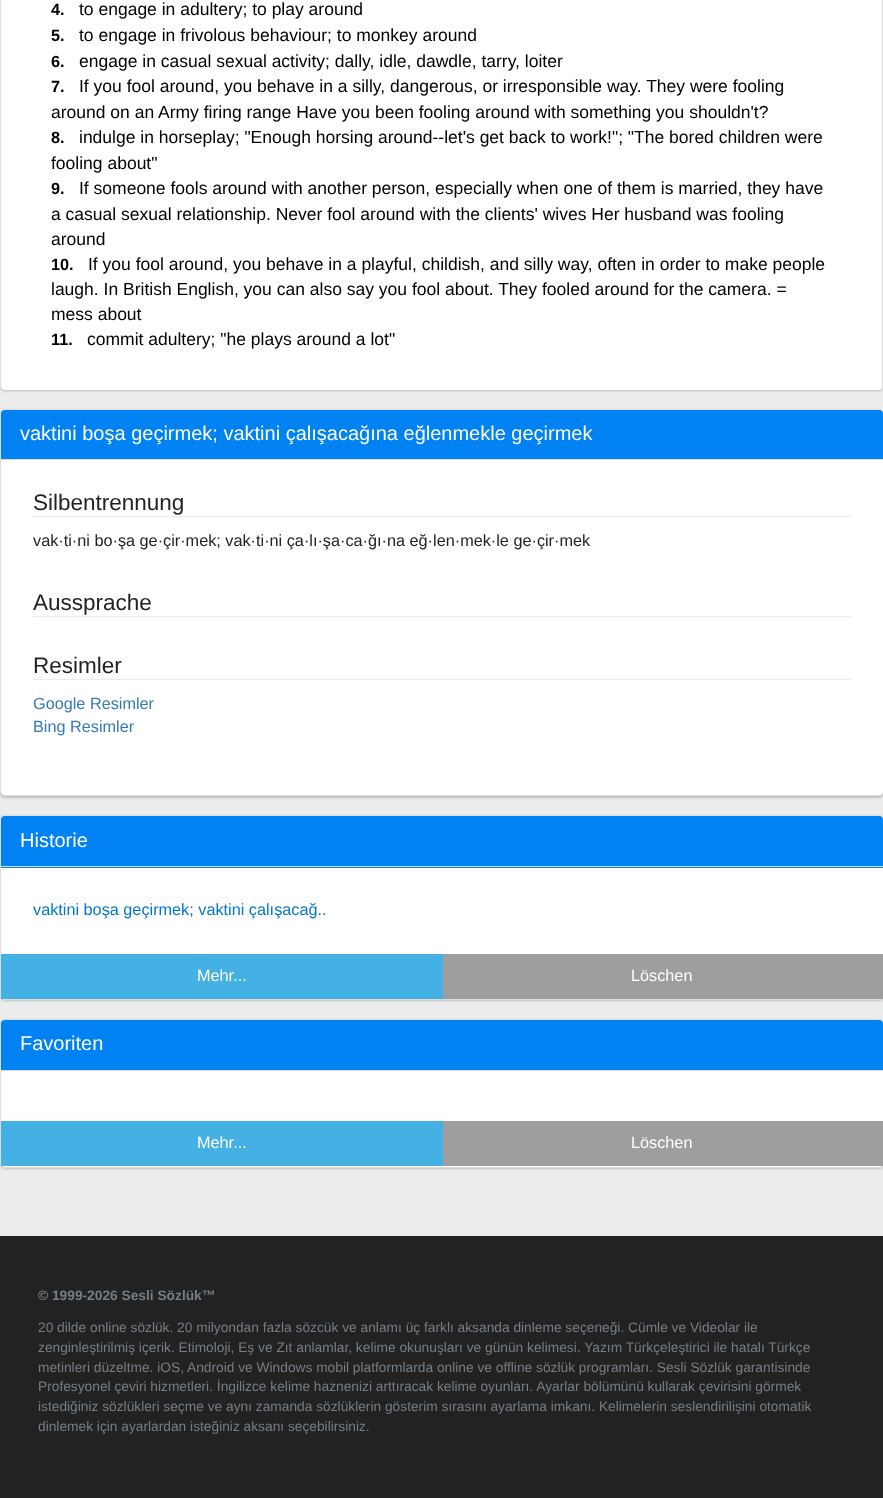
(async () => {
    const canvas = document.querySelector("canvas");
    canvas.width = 883;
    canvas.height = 1498;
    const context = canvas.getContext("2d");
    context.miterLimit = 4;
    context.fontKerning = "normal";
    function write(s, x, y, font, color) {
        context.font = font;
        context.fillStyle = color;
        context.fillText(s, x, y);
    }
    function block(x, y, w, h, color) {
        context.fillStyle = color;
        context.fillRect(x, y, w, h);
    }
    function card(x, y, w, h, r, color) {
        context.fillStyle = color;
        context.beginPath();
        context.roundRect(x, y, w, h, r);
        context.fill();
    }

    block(0, 0, 883, 1498, "rgb(237, 236, 236)");
    context.fillStyle = "rgba(0, 0, 0, 0.2)";
    context.filter = "blur(1px)";
    context.beginPath();
    context.roundRect(0, -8, 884, 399, 5);
    context.fill();
    context.filter = "none";
    card(0, -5, 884, 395, 5, "rgb(255, 255, 255)");
    context.fillStyle = "rgb(221, 221, 221)";
    context.beginPath();
    context.moveTo(5, -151);
    context.lineTo(879, -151);
    context.bezierCurveTo(882, -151, 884, -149, 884, -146);
    context.lineTo(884, 385);
    context.bezierCurveTo(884, 388, 882, 390, 879, 390);
    context.lineTo(5, 390);
    context.bezierCurveTo(2, 390, 0, 388, 0, 385);
    context.lineTo(0, -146);
    context.bezierCurveTo(0, -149, 2, -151, 5, -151);
    context.closePath();
    context.moveTo(5, -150);
    context.lineTo(879, -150);
    context.bezierCurveTo(881, -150, 882, -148, 882, -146);
    context.lineTo(882, 385);
    context.bezierCurveTo(882, 388, 881, 390, 879, 390);
    context.lineTo(5, 390);
    context.bezierCurveTo(3, 390, 1, 388, 1, 385);
    context.lineTo(1, -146);
    context.bezierCurveTo(1, -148, 3, -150, 5, -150);
    context.closePath();
    context.fill("evenodd");
    write("4.", 51, 15, "bold 16.25px Liberation Sans", "rgb(0, 0, 0)");
    write("to engage in adultery; to play around", 79, 15, "17.5px Liberation Sans", "rgb(0, 0, 0)");
    write("5.", 51, 41, "bold 16.25px Liberation Sans", "rgb(0, 0, 0)");
    write("to engage in frivolous behaviour; to monkey around", 79, 41, "17.5px Liberation Sans", "rgb(0, 0, 0)");
    write("6.", 51, 67, "bold 16.25px Liberation Sans", "rgb(0, 0, 0)");
    write("engage in casual sexual activity; dally, idle, dawdle, tarry, loiter", 79, 67, "17.5px Liberation Sans", "rgb(0, 0, 0)");
    write("7.", 51, 92, "bold 16.25px Liberation Sans", "rgb(0, 0, 0)");
    write("If you fool around, you behave in a silly, dangerous, or irresponsible way. They were fooling", 79, 92, "17.5px Liberation Sans", "rgb(0, 0, 0)");
    write("around on an Army firing range Have you been fooling around with something you shouldn't?", 51, 118, "17.5px Liberation Sans", "rgb(0, 0, 0)");
    write("8.", 51, 143, "bold 16.25px Liberation Sans", "rgb(0, 0, 0)");
    write("indulge in horseplay; \"Enough horsing around--let's get back to work!\"; \"The bored children were", 79, 143, "17.5px Liberation Sans", "rgb(0, 0, 0)");
    write("fooling about\"", 51, 169, "17.5px Liberation Sans", "rgb(0, 0, 0)");
    write("9.", 51, 194, "bold 16.25px Liberation Sans", "rgb(0, 0, 0)");
    write("If someone fools around with another person, especially when one of them is married, they have", 79, 194, "17.5px Liberation Sans", "rgb(0, 0, 0)");
    write("a casual sexual relationship. Never fool around with the clients' wives Her husband was fooling", 51, 220, "17.5px Liberation Sans", "rgb(0, 0, 0)");
    write("around", 51, 245, "17.5px Liberation Sans", "rgb(0, 0, 0)");
    write("10.", 51, 270, "bold 16.25px Liberation Sans", "rgb(0, 0, 0)");
    write("If you fool around, you behave in a playful, childish, and silly way, often in order to make people", 88, 270, "17.5px Liberation Sans", "rgb(0, 0, 0)");
    write("laugh. In British English, you can also say you fool about. They fooled around for the camera. =", 51, 295, "17.5px Liberation Sans", "rgb(0, 0, 0)");
    write("mess about", 51, 320, "17.5px Liberation Sans", "rgb(0, 0, 0)");
    write("11.", 51, 345, "bold 16.25px Liberation Sans", "rgb(0, 0, 0)");
    write("commit adultery; \"he plays around a lot\"", 87, 345, "17.5px Liberation Sans", "rgb(0, 0, 0)");
    context.fillStyle = "rgba(0, 0, 0, 0.2)";
    context.filter = "blur(1px)";
    context.beginPath();
    context.roundRect(0, 410, 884, 388, 5);
    context.fill();
    context.filter = "none";
    context.fillStyle = "rgb(255, 255, 255)";
    context.beginPath();
    context.roundRect(0.5, 409.5, 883, 386, 4.5);
    context.fill();
    context.strokeStyle = "rgb(221, 221, 221)";
    context.stroke();
    context.fillStyle = "rgb(0, 130, 242)";
    context.beginPath();
    context.roundRect(1, 410, 882, 50, [4, 4, 0, 0]);
    context.fill();
    block(1, 459, 882, 1, "rgb(221, 221, 221)");
    write("vaktini boşa geçirmek; vaktini çalışacağına eğlenmekle geçirmek", 20, 440, "20px Liberation Sans", "rgb(255, 255, 255)");
    block(33, 516, 818, 1, "rgb(235, 235, 235)");
    write("Silbentrennung", 33, 510, "22.5px Liberation Sans", "rgb(34, 34, 34)");
    write("vak·ti·ni bo·şa ge·çir·mek; vak·ti·ni ça·lı·şa·ca·ğı·na eğ·len·mek·le ge·çir·mek", 33, 546, "16.25px Liberation Sans", "rgb(34, 34, 34)");
    block(33, 616, 818, 1, "rgb(235, 235, 235)");
    write("Aussprache", 33, 610, "22.5px Liberation Sans", "rgb(34, 34, 34)");
    block(33, 679, 818, 1, "rgb(235, 235, 235)");
    write("Resimler", 33, 673, "22.5px Liberation Sans", "rgb(34, 34, 34)");
    write("Google Resimler", 33, 709, "16.25px Liberation Sans", "rgb(51, 122, 183)");
    write("Bing Resimler", 33, 732, "16.25px Liberation Sans", "rgb(51, 122, 183)");
    context.fillStyle = "rgba(0, 0, 0, 0.2)";
    context.filter = "blur(1px)";
    context.beginPath();
    context.roundRect(0, 816, 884, 185, 5);
    context.fill();
    context.filter = "none";
    context.fillStyle = "rgb(255, 255, 255)";
    context.beginPath();
    context.roundRect(0.5, 815.5, 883, 184, 4.5);
    context.fill();
    context.stroke();
    context.fillStyle = "rgb(0, 130, 242)";
    context.beginPath();
    context.roundRect(1, 816, 882, 52, [4, 4, 0, 0]);
    context.fill();
    block(1, 866, 882, 1, "rgb(221, 221, 221)");
    write("Historie", 20, 847, "20px Liberation Sans", "rgb(255, 255, 255)");
    write("vaktini boşa geçirmek; vaktini çalışacağ..", 33, 915, "16.25px Liberation Sans", "rgb(0, 119, 204)");
    block(1, 954, 442, 45, "rgb(68, 177, 229)");
    write("Mehr...", 197, 981, "16.25px Liberation Sans", "rgb(255, 255, 255)");
    block(443, 954, 440, 45, "rgb(158, 158, 158)");
    write("Löschen", 631, 981, "16.25px Liberation Sans", "rgb(255, 255, 255)");
    context.fillStyle = "rgba(0, 0, 0, 0.2)";
    context.filter = "blur(1px)";
    context.beginPath();
    context.roundRect(0, 1020, 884, 149, 5);
    context.fill();
    context.filter = "none";
    context.fillStyle = "rgb(255, 255, 255)";
    context.beginPath();
    context.roundRect(0.5, 1019.5, 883, 148, 4.5);
    context.fill();
    context.stroke();
    context.fillStyle = "rgb(0, 130, 242)";
    context.beginPath();
    context.roundRect(1, 1020, 882, 51, [4, 4, 0, 0]);
    context.fill();
    block(1, 1070, 882, 1, "rgb(221, 221, 221)");
    write("Favoriten", 20, 1050, "20px Liberation Sans", "rgb(255, 255, 255)");
    block(1, 1121, 442, 45, "rgb(68, 177, 229)");
    write("Mehr...", 197, 1148, "16.25px Liberation Sans", "rgb(255, 255, 255)");
    block(443, 1121, 440, 45, "rgb(158, 158, 158)");
    write("Löschen", 631, 1148, "16.25px Liberation Sans", "rgb(255, 255, 255)");
    block(0, 1236, 883, 262, "rgb(34, 34, 34)");
    write("© 1999-2026 Sesli Sözlük™", 38, 1300, "bold 13.75px Liberation Sans", "rgb(118, 125, 132)");
    write("20 dilde online sözlük. 20 milyondan fazla sözcük ve anlamı üç farklı aksanda dinleme seçeneği. Cümle ve Videolar ile", 38, 1332, "13.75px Liberation Sans", "rgb(118, 125, 132)");
    write("zenginleştirilmiş içerik. Etimoloji, Eş ve Zıt anlamlar, kelime okunuşları ve günün kelimesi. Yazım Türkçeleştirici ile hatalı Türkçe", 38, 1352, "13.75px Liberation Sans", "rgb(118, 125, 132)");
    write("metinleri düzeltme. iOS, Android ve Windows mobil platformlarda online ve offline sözlük programları. Sesli Sözlük garantisinde", 38, 1372, "13.75px Liberation Sans", "rgb(118, 125, 132)");
    write("Profesyonel çeviri hizmetleri. İngilizce kelime haznenizi arttıracak kelime oyunları. Ayarlar bölümünü kullarak çevirisini görmek", 38, 1391, "13.75px Liberation Sans", "rgb(118, 125, 132)");
    write("istediğiniz sözlükleri seçme ve aynı zamanda sözlüklerin gösterim sırasını ayarlama imkanı. Kelimelerin seslendirilişini otomatik", 38, 1411, "13.75px Liberation Sans", "rgb(118, 125, 132)");
    write("dinlemek için ayarlardan isteğiniz aksanı seçebilirsiniz.", 38, 1431, "13.75px Liberation Sans", "rgb(118, 125, 132)");
})();
